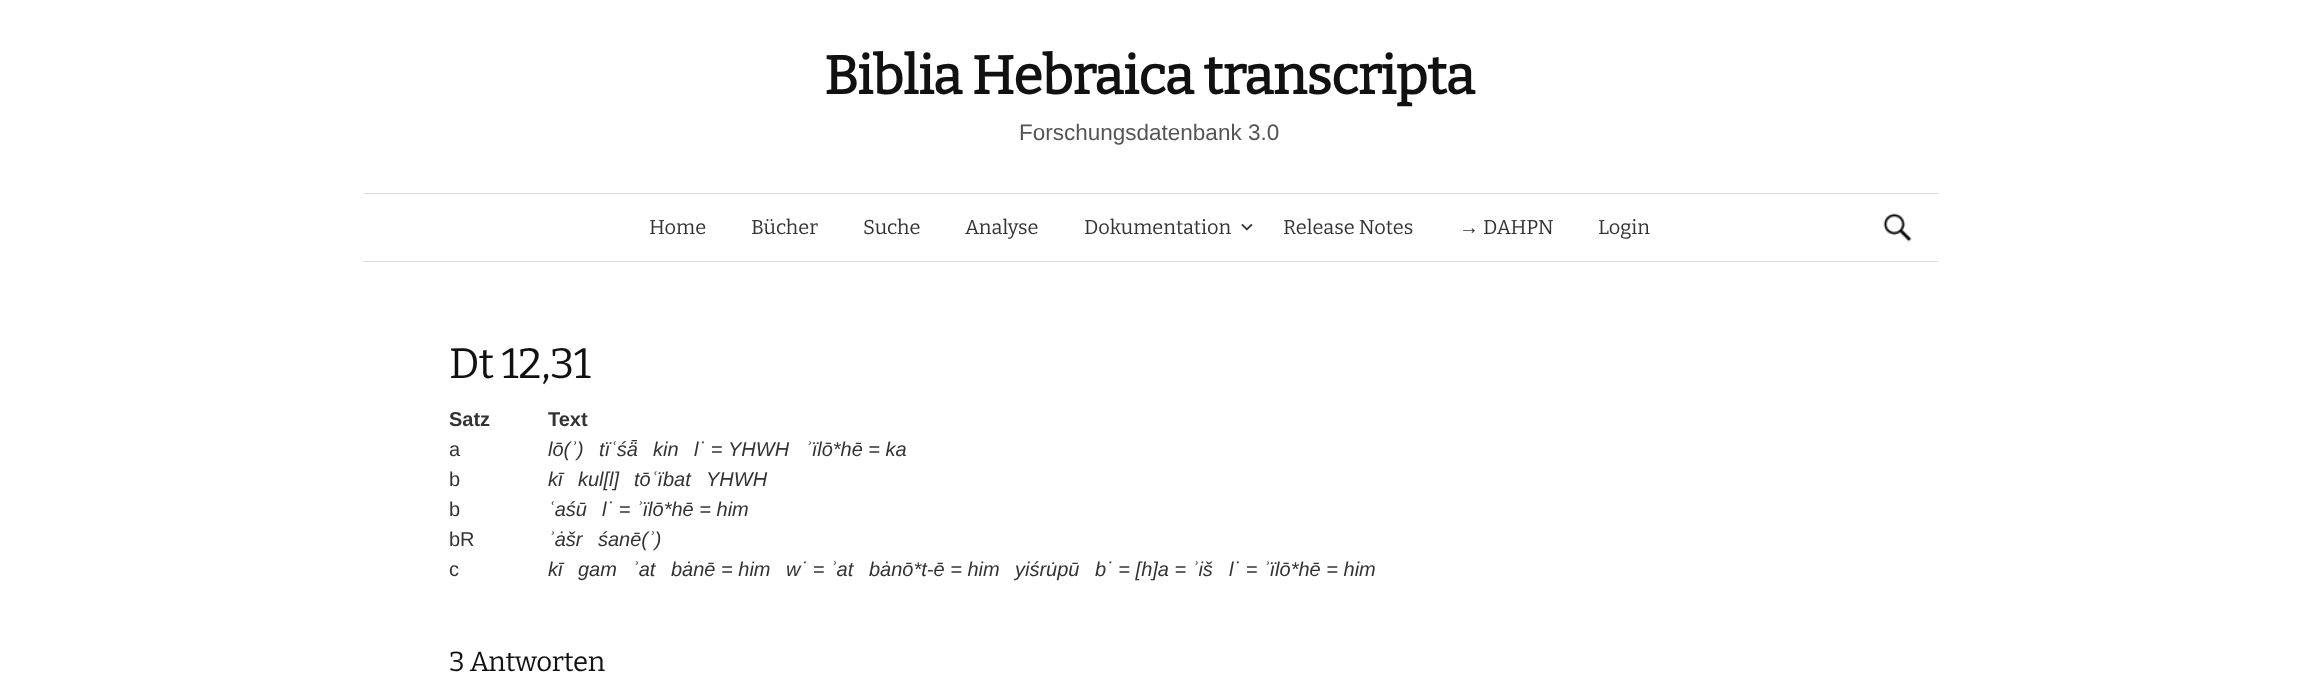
(async () => {
    const canvas = document.querySelector("canvas");
    canvas.width = 2298;
    canvas.height = 700;
    const context = canvas.getContext("2d");
    context.miterLimit = 4;
    context.fontKerning = "normal";
    function write(s, x, y, font, color) {
        context.font = font;
        context.fillStyle = color;
        context.fillText(s, x, y);
    }
    function block(x, y, w, h, color) {
        context.fillStyle = color;
        context.fillRect(x, y, w, h);
    }
    async function photo(src, x, y, w, h) {
        const img = new Image();
        img.src = src;
        await img.decode();
        context.drawImage(img, x, y, w, h);
    }

    block(0, 0, 2298, 700, "rgb(255, 255, 255)");
    context.letterSpacing = "-0.55px";
    write("Biblia Hebraica transcripta", 824, 94, "bold 53.75px Bitter", "rgb(17, 17, 17)");
    context.letterSpacing = "0px";
    write("Forschungsdatenbank 3.0", 1019, 140, "22.5px Liberation Sans", "rgb(85, 85, 85)");
    block(363, 261, 1575, 1, "rgb(221, 221, 221)");
    block(363, 193, 1575, 1, "rgb(221, 221, 221)");
    write("Home", 649, 234, "100 20px Bitter", "rgb(51, 51, 51)");
    write("Bücher", 751, 234, "100 20px Bitter", "rgb(51, 51, 51)");
    write("Suche", 863, 234, "100 20px Bitter", "rgb(51, 51, 51)");
    write("Analyse", 965, 234, "100 20px Bitter", "rgb(51, 51, 51)");
    write("Dokumentation", 1084, 234, "100 20px Bitter", "rgb(51, 51, 51)");
    await photo("media/1.png", 1241, 223, 12, 8);
    write("Release Notes", 1283, 234, "100 20px Bitter", "rgb(51, 51, 51)");
    write("→", 1459, 234, "20px Liberation Serif", "rgb(51, 51, 51)");
    write("DAHPN", 1483, 234, "100 20px Bitter", "rgb(51, 51, 51)");
    write("Login", 1598, 234, "100 20px Bitter", "rgb(51, 51, 51)");
    await photo("media/2.png", 1883, 213, 29, 29);
    context.letterSpacing = "-0.5px";
    write("Dt 12,31", 449, 378, "100 42.5px Bitter", "rgb(17, 17, 17)");
    context.letterSpacing = "0px";
    write("Satz", 449, 426, "bold 20px Liberation Sans", "rgb(51, 51, 51)");
    write("Text", 548, 426, "bold 20px Liberation Sans", "rgb(51, 51, 51)");
    write("a", 449, 456, "20px Liberation Sans", "rgb(51, 51, 51)");
    write("lō(ʾ)", 548, 456, "italic 20px Liberation Sans", "rgb(51, 51, 51)");
    write("tïʿśǟ", 599, 456, "italic 20px Liberation Sans", "rgb(51, 51, 51)");
    write("kin", 653, 456, "italic 20px Liberation Sans", "rgb(51, 51, 51)");
    write("l˙ =", 694, 456, "italic 20px Liberation Sans", "rgb(51, 51, 51)");
    write("YHWH", 728, 456, "italic 20px Liberation Sans", "rgb(51, 51, 51)");
    write("ʾïlō*hē = ka", 805, 456, "italic 20px Liberation Sans", "rgb(51, 51, 51)");
    write("b", 449, 486, "20px Liberation Sans", "rgb(51, 51, 51)");
    write("kī", 548, 486, "italic 20px Liberation Sans", "rgb(51, 51, 51)");
    write("kul[l]", 578, 486, "italic 20px Liberation Sans", "rgb(51, 51, 51)");
    write("tōʿïbat", 634, 486, "italic 20px Liberation Sans", "rgb(51, 51, 51)");
    write("YHWH", 706, 486, "italic 20px Liberation Sans", "rgb(51, 51, 51)");
    write("b", 449, 516, "20px Liberation Sans", "rgb(51, 51, 51)");
    write("ʿaśū", 548, 516, "italic 20px Liberation Sans", "rgb(51, 51, 51)");
    write("l˙ = ʾïlō*hē = him", 602, 516, "italic 20px Liberation Sans", "rgb(51, 51, 51)");
    write("bR", 449, 546, "20px Liberation Sans", "rgb(51, 51, 51)");
    write("ʾȧšr", 548, 546, "italic 20px Liberation Sans", "rgb(51, 51, 51)");
    write("śanē(ʾ)", 598, 546, "italic 20px Liberation Sans", "rgb(51, 51, 51)");
    write("c", 449, 576, "20px Liberation Sans", "rgb(51, 51, 51)");
    write("kī", 548, 576, "italic 20px Liberation Sans", "rgb(51, 51, 51)");
    write("gam", 578, 576, "italic 20px Liberation Sans", "rgb(51, 51, 51)");
    write("ʾat", 632, 576, "italic 20px Liberation Sans", "rgb(51, 51, 51)");
    write("bȧnē = him", 671, 576, "italic 20px Liberation Sans", "rgb(51, 51, 51)");
    write("w˙ = ʾat", 786, 576, "italic 20px Liberation Sans", "rgb(51, 51, 51)");
    write("bȧnō*t-ē = him", 869, 576, "italic 20px Liberation Sans", "rgb(51, 51, 51)");
    write("yiśru̇pū", 1015, 576, "italic 20px Liberation Sans", "rgb(51, 51, 51)");
    write("b˙ = [h]a = ʾiš", 1095, 576, "italic 20px Liberation Sans", "rgb(51, 51, 51)");
    write("l˙ = ʾïlō*hē = him", 1229, 576, "italic 20px Liberation Sans", "rgb(51, 51, 51)");
    context.letterSpacing = "-0.25px";
    write("3 Antworten", 449, 671, "100 27.5px Bitter", "rgb(17, 17, 17)");
})();
